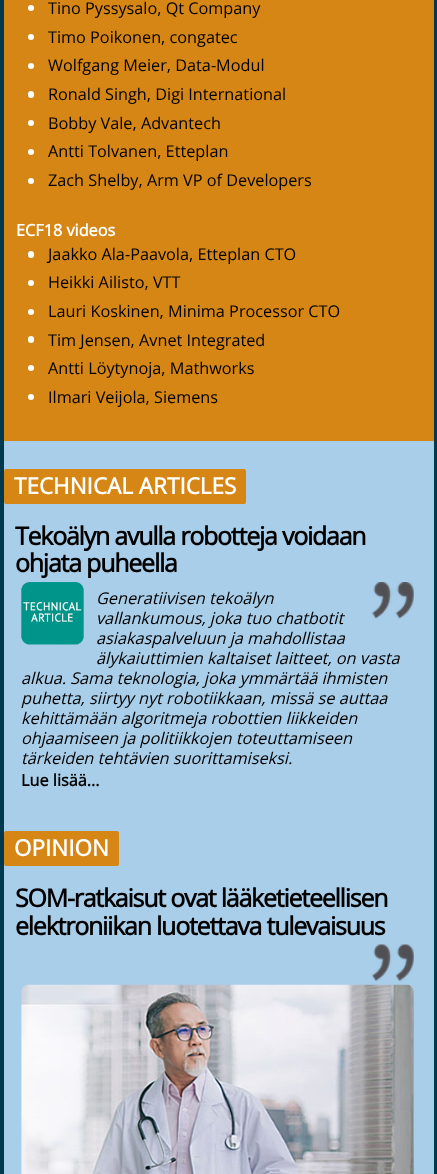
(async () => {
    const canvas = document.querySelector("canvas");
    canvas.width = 437;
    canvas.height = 1174;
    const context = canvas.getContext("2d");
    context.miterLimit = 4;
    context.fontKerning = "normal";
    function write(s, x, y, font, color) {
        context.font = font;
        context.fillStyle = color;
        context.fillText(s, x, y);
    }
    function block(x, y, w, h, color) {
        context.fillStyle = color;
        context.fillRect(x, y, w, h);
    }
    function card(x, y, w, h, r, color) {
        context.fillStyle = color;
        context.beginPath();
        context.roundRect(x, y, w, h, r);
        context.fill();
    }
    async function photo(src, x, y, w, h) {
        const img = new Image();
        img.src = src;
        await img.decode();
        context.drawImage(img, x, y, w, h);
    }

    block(0, 0, 437, 1174, "rgb(0, 56, 77)");
    block(4, 441, 430, 733, "rgb(169, 206, 233)");
    block(4, 0, 430, 441, "rgb(214, 134, 20)");
    context.fillStyle = "rgb(255, 255, 255)";
    context.beginPath();
    context.arc(31, 8, 3, 0, Math.PI * 2);
    context.fill();
    write("Tino Pyssysalo, Qt Company", 48, 14, "16.25px Open Sans", "rgb(0, 0, 0)");
    context.fillStyle = "rgb(255, 255, 255)";
    context.beginPath();
    context.arc(31, 37, 3, 0, Math.PI * 2);
    context.fill();
    write("Timo Poikonen, congatec", 48, 43, "16.25px Open Sans", "rgb(0, 0, 0)");
    context.fillStyle = "rgb(255, 255, 255)";
    context.beginPath();
    context.arc(31, 66, 3, 0, Math.PI * 2);
    context.fill();
    write("Wolfgang Meier, Data-Modul", 48, 71, "16.25px Open Sans", "rgb(0, 0, 0)");
    card(28, 91, 6, 7, 3, "rgb(255, 255, 255)");
    write("Ronald Singh, Digi International", 48, 100, "16.25px Open Sans", "rgb(0, 0, 0)");
    context.fillStyle = "rgb(255, 255, 255)";
    context.beginPath();
    context.arc(31, 123, 3, 0, Math.PI * 2);
    context.fill();
    write("Bobby Vale, Advantech", 48, 129, "16.25px Open Sans", "rgb(0, 0, 0)");
    context.fillStyle = "rgb(255, 255, 255)";
    context.beginPath();
    context.arc(31, 152, 3, 0, Math.PI * 2);
    context.fill();
    write("Antti Tolvanen, Etteplan", 48, 157, "16.25px Open Sans", "rgb(0, 0, 0)");
    context.fillStyle = "rgb(255, 255, 255)";
    context.beginPath();
    context.arc(31, 181, 3, 0, Math.PI * 2);
    context.fill();
    write("Zach Shelby, Arm VP of Developers", 48, 186, "16.25px Open Sans", "rgb(0, 0, 0)");
    write("ECF18 videos", 16, 236, "bold 16.25px Open Sans", "rgb(255, 255, 255)");
    card(28, 251, 6, 7, 3, "rgb(255, 255, 255)");
    write("Jaakko Ala-Paavola, Etteplan CTO", 48, 260, "16.25px Open Sans", "rgb(0, 0, 0)");
    context.fillStyle = "rgb(255, 255, 255)";
    context.beginPath();
    context.arc(31, 283, 3, 0, Math.PI * 2);
    context.fill();
    write("Heikki Ailisto, VTT", 48, 288, "16.25px Open Sans", "rgb(0, 0, 0)");
    context.fillStyle = "rgb(255, 255, 255)";
    context.beginPath();
    context.arc(31, 312, 3, 0, Math.PI * 2);
    context.fill();
    write("Lauri Koskinen, Minima Processor CTO", 48, 317, "16.25px Open Sans", "rgb(0, 0, 0)");
    card(28, 336, 6, 7, 3, "rgb(255, 255, 255)");
    write("Tim Jensen, Avnet Integrated", 48, 346, "16.25px Open Sans", "rgb(0, 0, 0)");
    context.fillStyle = "rgb(255, 255, 255)";
    context.beginPath();
    context.arc(31, 368, 3, 0, Math.PI * 2);
    context.fill();
    write("Antti Löytynoja, Mathworks", 48, 374, "16.25px Open Sans", "rgb(0, 0, 0)");
    context.fillStyle = "rgb(255, 255, 255)";
    context.beginPath();
    context.arc(31, 397, 3, 0, Math.PI * 2);
    context.fill();
    write("Ilmari Veijola, Siemens", 48, 403, "16.25px Open Sans", "rgb(0, 0, 0)");
    card(4, 469, 242, 35, 2.5, "rgb(214, 134, 20)");
    block(5, 469, 240, 1, "rgb(214, 134, 20)");
    block(5, 503, 240, 1, "rgb(214, 134, 20)");
    write("TECHNICAL ARTICLES", 14, 494, "bold 22.5px Open Sans", "rgb(255, 255, 255)");
    context.letterSpacing = "-1.25px";
    write("Tekoälyn avulla robotteja voidaan", 15, 545, "bold 25px Open Sans", "rgb(0, 0, 0)");
    write("ohjata puheella", 15, 572, "bold 25px Open Sans", "rgb(0, 0, 0)");
    await photo("media/1.png", 21, 582, 63, 63);
    await photo("media/2.png", 372, 582, 42, 37);
    context.letterSpacing = "0px";
    write("Generatiivisen tekoälyn", 96, 604, "italic 16.25px Open Sans", "rgb(0, 0, 0)");
    write("vallankumous, joka tuo chatbotit", 96, 624, "italic 16.25px Open Sans", "rgb(0, 0, 0)");
    write("asiakaspalveluun ja mahdollistaa", 96, 644, "italic 16.25px Open Sans", "rgb(0, 0, 0)");
    write("älykaiuttimien kaltaiset laitteet, on vasta", 96, 664, "italic 16.25px Open Sans", "rgb(0, 0, 0)");
    write("alkua. Sama teknologia, joka ymmärtää ihmisten", 21, 684, "italic 16.25px Open Sans", "rgb(0, 0, 0)");
    write("puhetta, siirtyy nyt robotiikkaan, missä se auttaa", 21, 704, "italic 16.25px Open Sans", "rgb(0, 0, 0)");
    write("kehittämään algoritmeja robottien liikkeiden", 21, 724, "italic 16.25px Open Sans", "rgb(0, 0, 0)");
    write("ohjaamiseen ja politiikkojen toteuttamiseen", 21, 744, "italic 16.25px Open Sans", "rgb(0, 0, 0)");
    write("tärkeiden tehtävien suorittamiseksi.", 21, 764, "italic 16.25px Open Sans", "rgb(0, 0, 0)");
    write("Lue lisää...", 21, 786, "bold 16.25px Open Sans", "rgb(0, 0, 0)");
    card(4, 831, 115, 35, 2.5, "rgb(214, 134, 20)");
    block(5, 831, 113, 1, "rgb(214, 134, 20)");
    block(5, 865, 113, 1, "rgb(214, 134, 20)");
    write("OPINION", 14, 856, "bold 22.5px Open Sans", "rgb(255, 255, 255)");
    context.letterSpacing = "-1.25px";
    write("SOM-ratkaisut ovat lääketieteellisen", 15, 907, "bold 25px Open Sans", "rgb(0, 0, 0)");
    write("elektroniikan luotettava tulevaisuus", 15, 935, "bold 25px Open Sans", "rgb(0, 0, 0)");
    await photo("media/3.png", 372, 944, 42, 37);
    await photo("media/4.png", 21, 984, 393, 190);
})();
